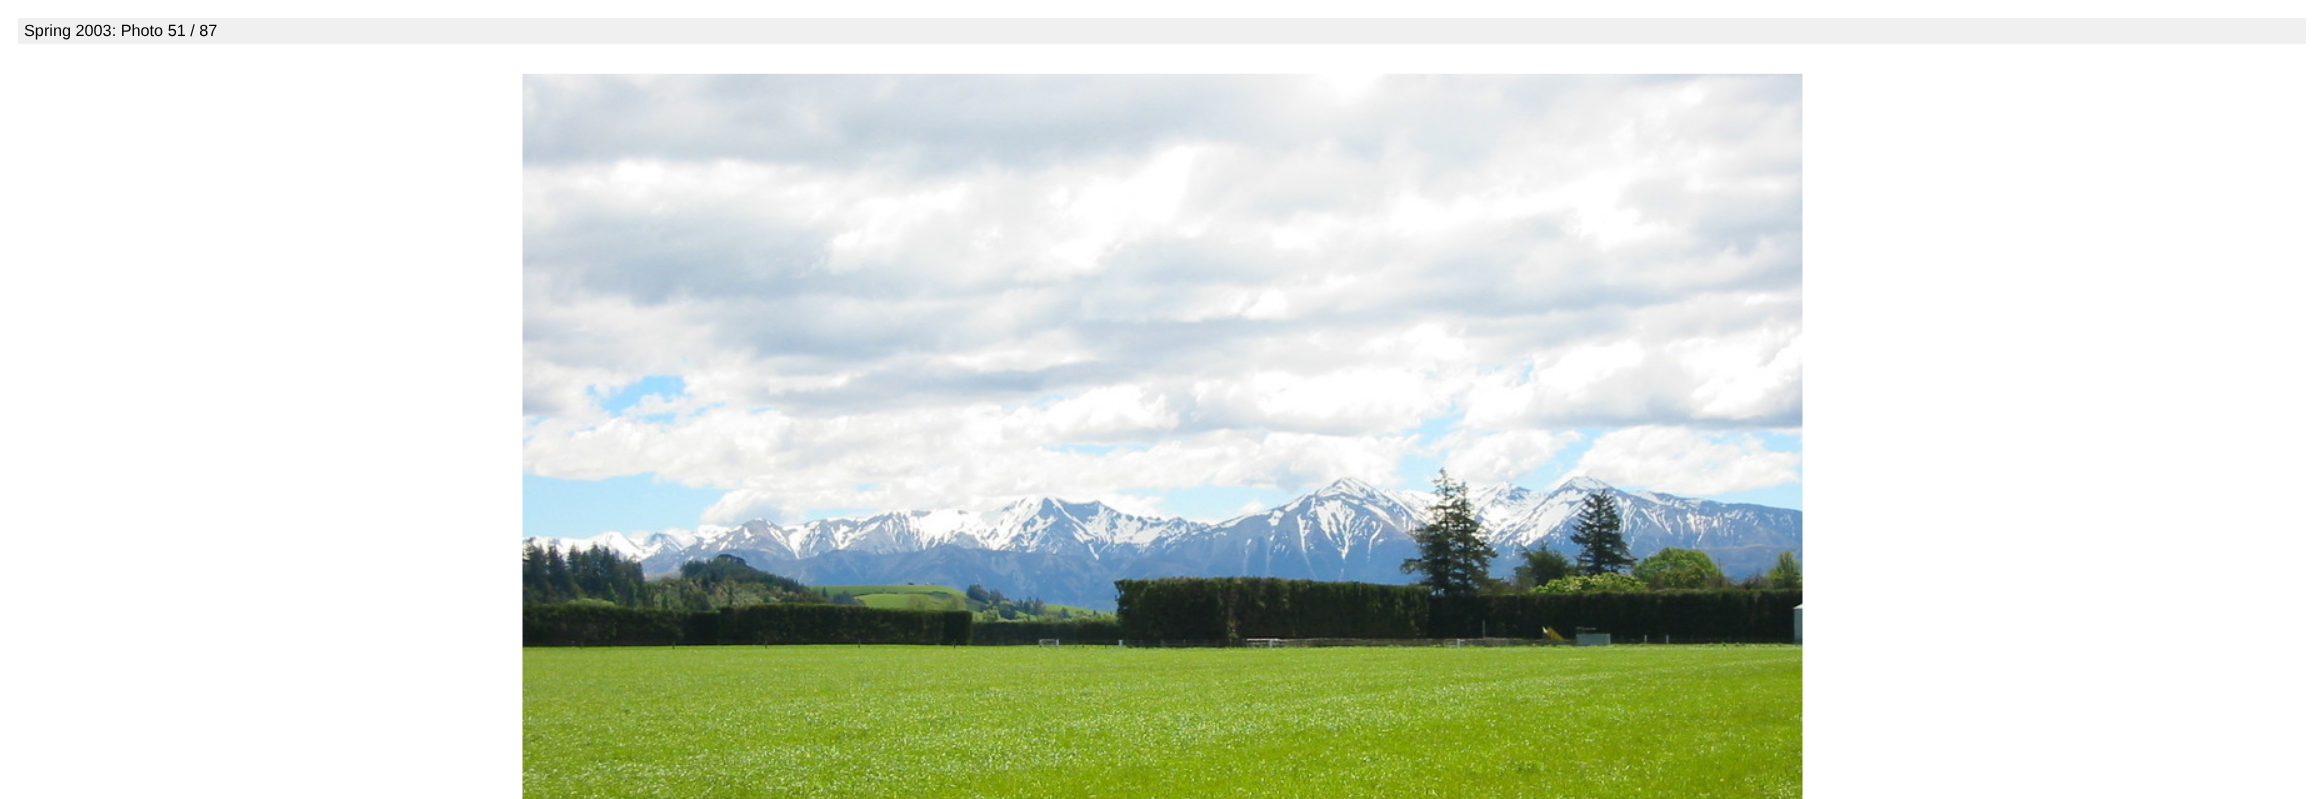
(async () => {
    const canvas = document.querySelector("canvas");
    canvas.width = 2323;
    canvas.height = 799;
    const context = canvas.getContext("2d");
    context.miterLimit = 4;
    context.fontKerning = "normal";
    function write(s, x, y, font, color) {
        context.font = font;
        context.fillStyle = color;
        context.fillText(s, x, y);
    }
    function block(x, y, w, h, color) {
        context.fillStyle = color;
        context.fillRect(x, y, w, h);
    }
    async function photo(src, x, y, w, h) {
        const img = new Image();
        img.src = src;
        await img.decode();
        context.drawImage(img, x, y, w, h);
    }

    block(0, 0, 2323, 799, "rgb(255, 255, 255)");
    block(18, 18, 2288, 26, "rgb(240, 240, 240)");
    write("Spring 2003: Photo 51 / 87", 24, 36, "16.25px Liberation Sans", "rgb(0, 0, 0)");
    await photo("media/1.png", 522, 73, 1281, 726);
})();
